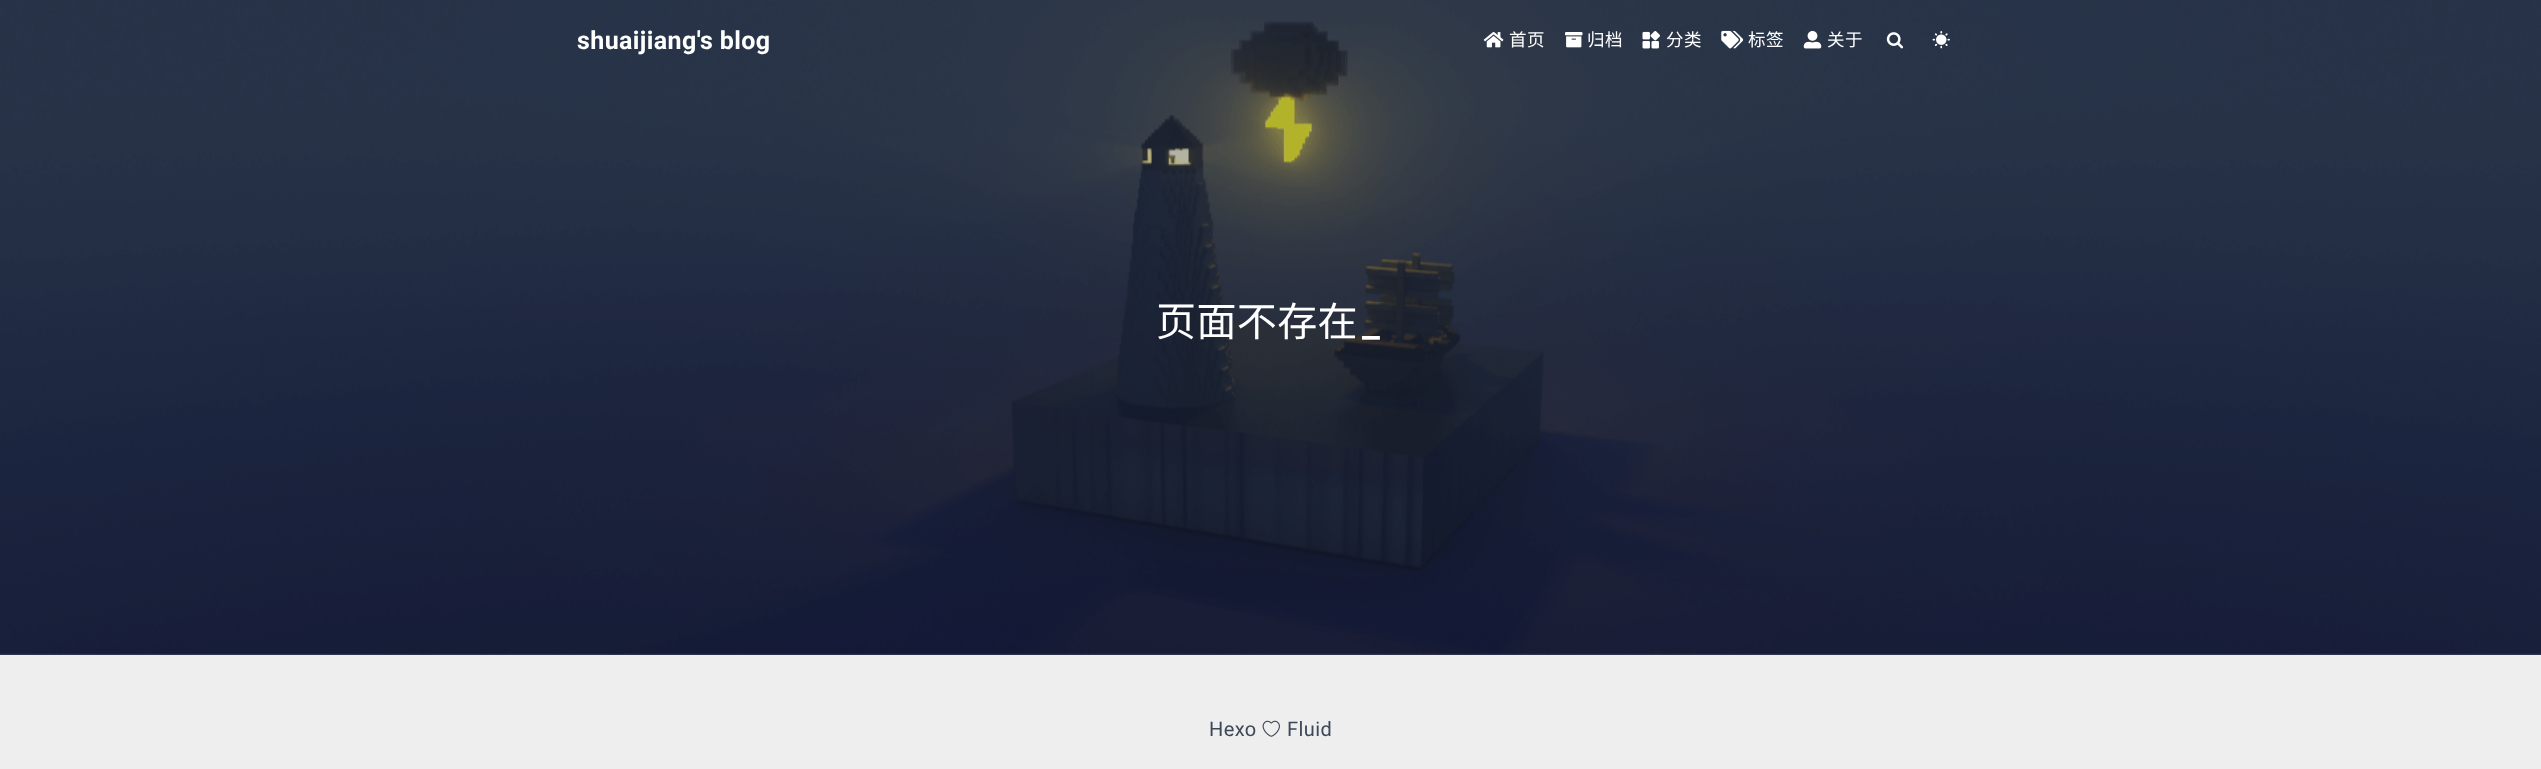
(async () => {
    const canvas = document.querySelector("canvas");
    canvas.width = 2541;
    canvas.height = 769;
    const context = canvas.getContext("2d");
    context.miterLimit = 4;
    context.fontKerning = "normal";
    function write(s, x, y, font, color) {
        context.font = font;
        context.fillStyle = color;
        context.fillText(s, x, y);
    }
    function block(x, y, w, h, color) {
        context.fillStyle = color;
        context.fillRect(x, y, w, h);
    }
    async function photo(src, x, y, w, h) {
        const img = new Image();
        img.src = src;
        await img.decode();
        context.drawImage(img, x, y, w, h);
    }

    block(0, 0, 2541, 769, "rgb(238, 238, 238)");
    await photo("media/8.png", 0, 0, 2541, 655);
    context.letterSpacing = "0.4px";
    write("shuaijiang's blog", 577, 49, "bold 25px Roboto", "rgb(255, 255, 255)");
    await photo("media/1.png", 1483, 32, 21, 16);
    write("首页", 1509, 46, "17.5px Noto Sans CJK SC", "rgb(255, 255, 255)");
    await photo("media/2.png", 1565, 32, 18, 16);
    write("归档", 1587, 46, "17.5px Noto Sans CJK SC", "rgb(255, 255, 255)");
    await photo("media/3.png", 1642, 31, 18, 18);
    write("分类", 1666, 46, "17.5px Noto Sans CJK SC", "rgb(255, 255, 255)");
    await photo("media/4.png", 1721, 30, 23, 19);
    write("标签", 1748, 46, "17.5px Noto Sans CJK SC", "rgb(255, 255, 255)");
    await photo("media/5.png", 1803, 30, 19, 19);
    write("关于", 1827, 46, "17.5px Noto Sans CJK SC", "rgb(255, 255, 255)");
    await photo("media/6.png", 1886, 32, 18, 17);
    await photo("media/7.png", 1932, 31, 18, 18);
    write("页面不存在", 1156, 336, "40px Noto Sans CJK SC", "rgb(255, 255, 255)");
    write("_", 1362, 336, "500 40px Roboto", "rgb(255, 255, 255)");
    write("Hexo", 1209, 736, "20px Roboto", "rgb(60, 72, 88)");
    await photo("media/9.png", 1262, 720, 18, 17);
    write("Fluid", 1287, 736, "20px Roboto", "rgb(60, 72, 88)");
})();
